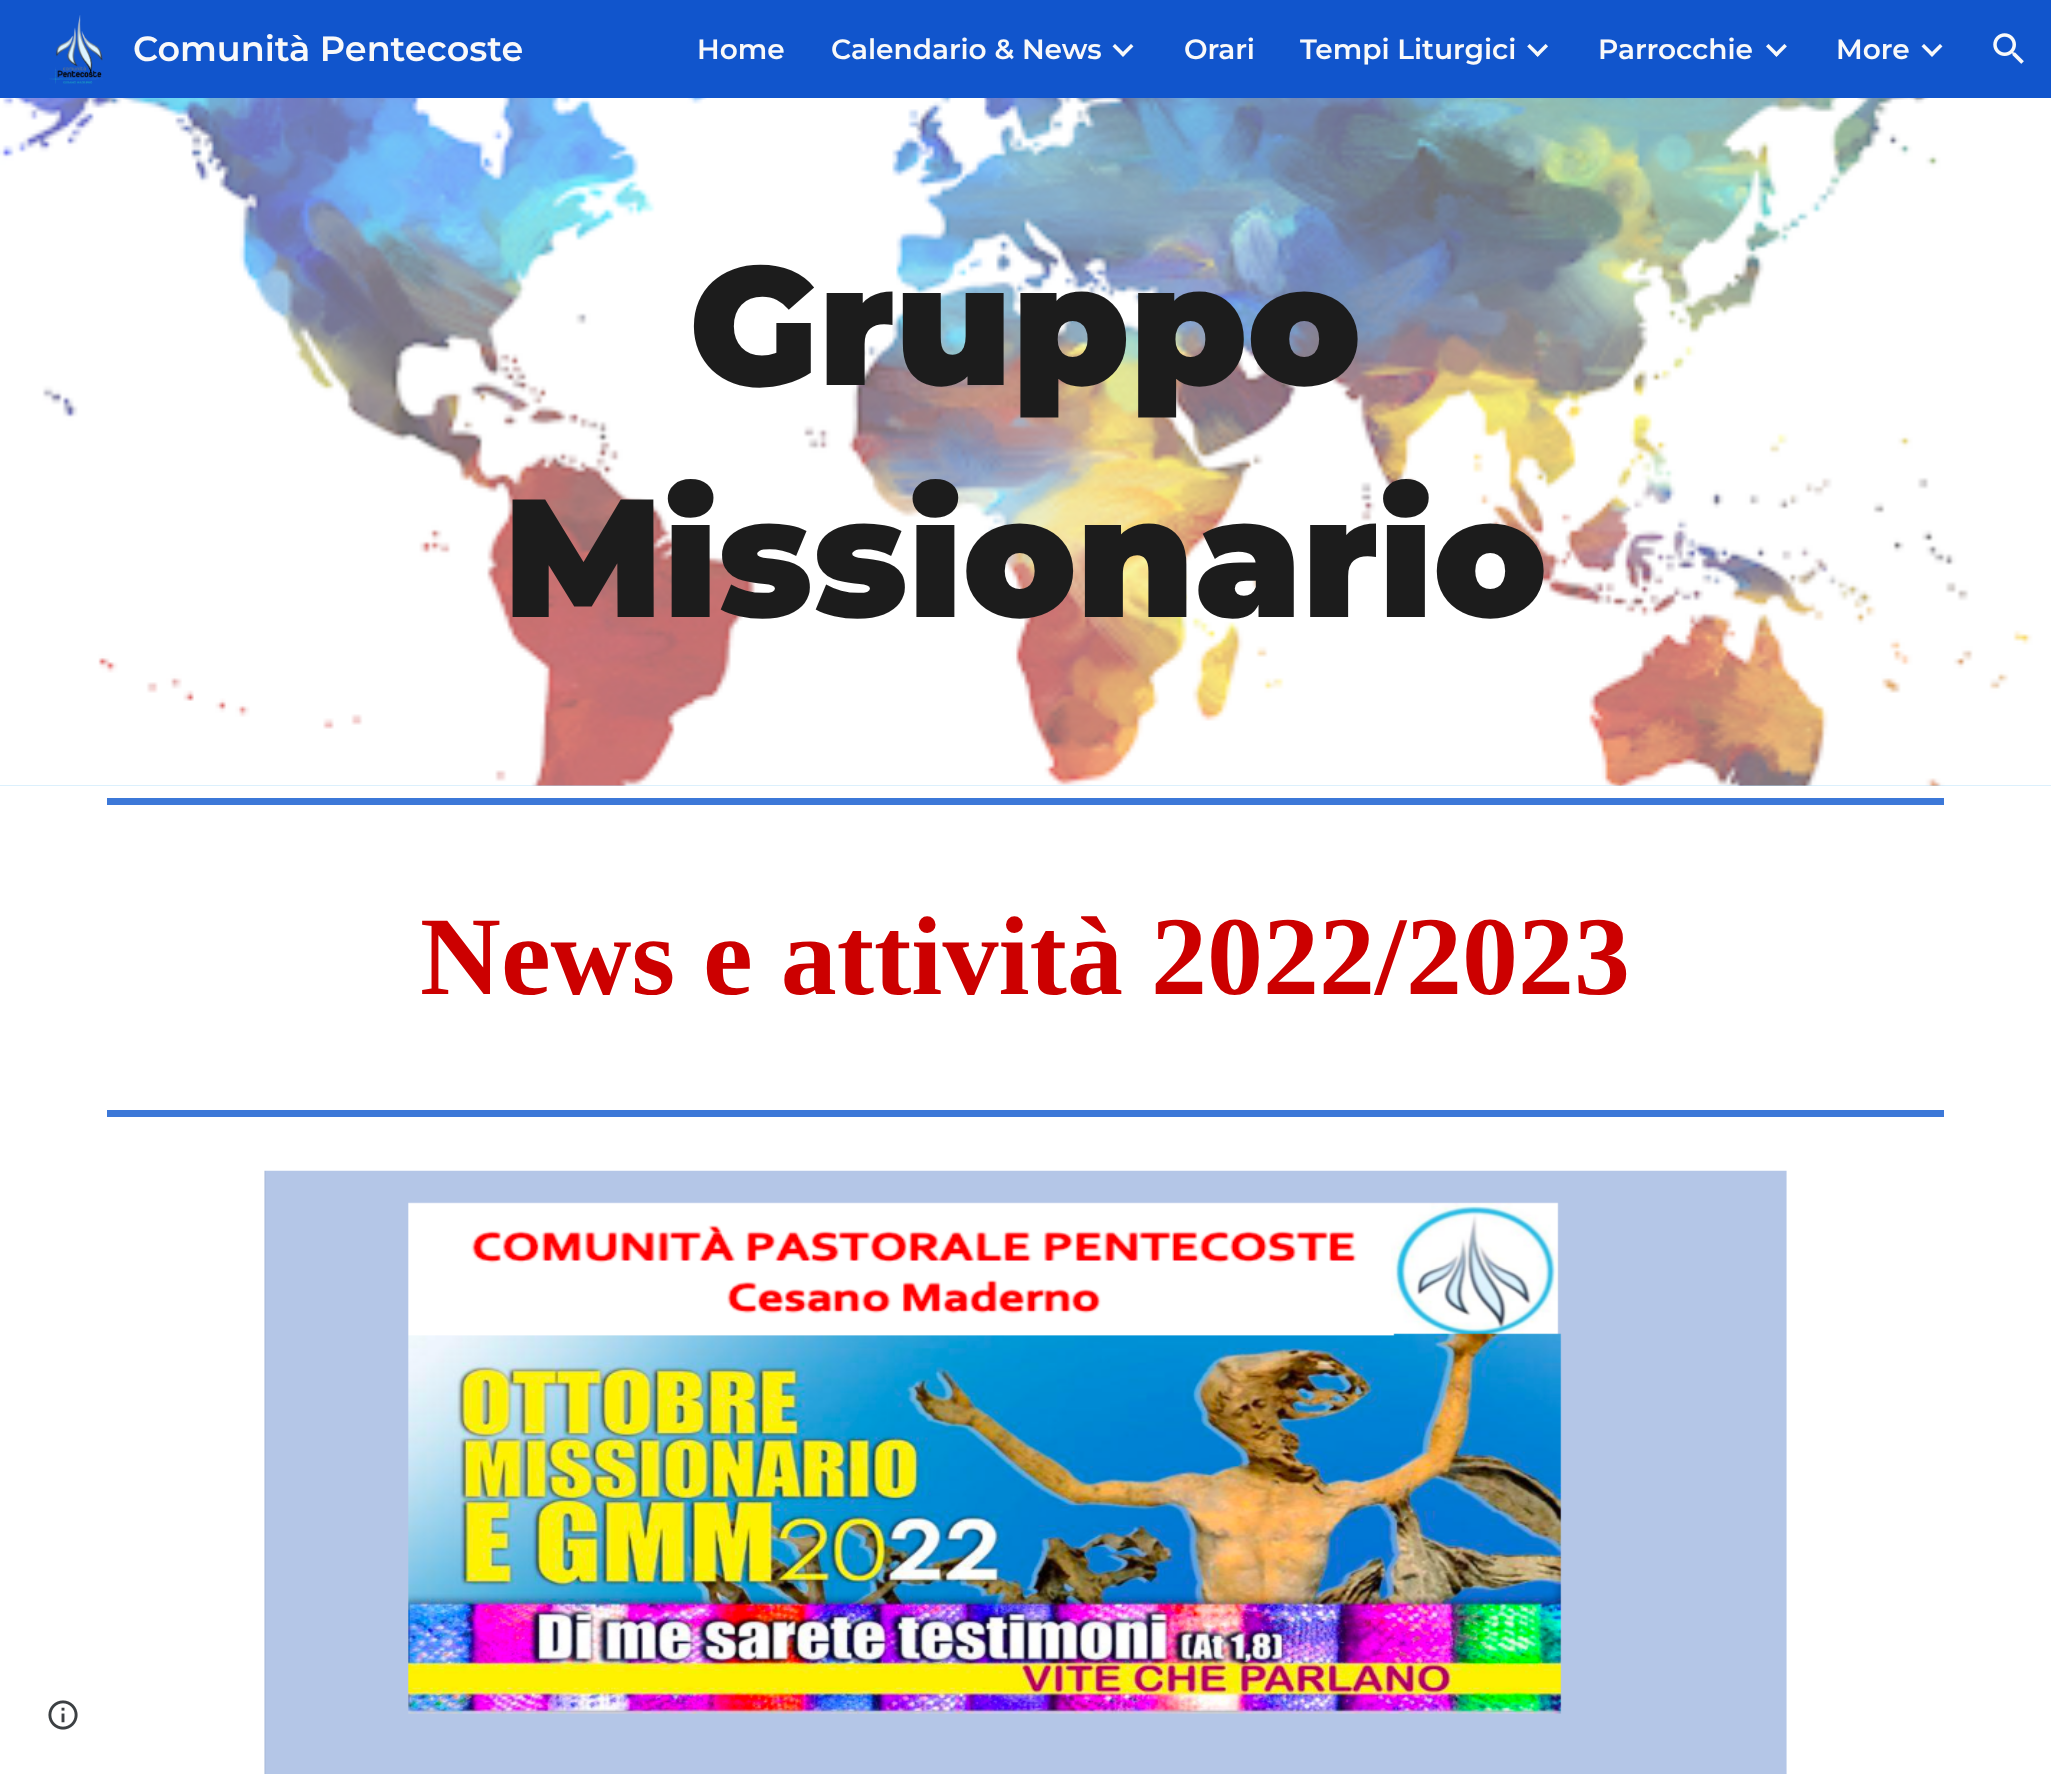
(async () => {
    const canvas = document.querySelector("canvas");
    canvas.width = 2051;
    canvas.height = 1774;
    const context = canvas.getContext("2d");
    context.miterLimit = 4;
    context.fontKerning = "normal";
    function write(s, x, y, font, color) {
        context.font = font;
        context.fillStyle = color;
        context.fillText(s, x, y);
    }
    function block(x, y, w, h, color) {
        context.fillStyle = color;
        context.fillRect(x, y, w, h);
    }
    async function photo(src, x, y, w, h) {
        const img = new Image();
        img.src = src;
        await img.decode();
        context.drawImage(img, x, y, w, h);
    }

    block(0, 0, 2051, 1774, "rgb(255, 255, 255)");
    block(0, 0, 2051, 98, "rgb(17, 85, 204)");
    await photo("media/1.png", 49, 15, 54, 69);
    write("Comunità Pentecoste", 133, 61, "600 35px Montserrat", "rgb(249, 249, 249)");
    write("Home", 697, 59, "600 28px Montserrat", "rgb(249, 249, 249)");
    write("Calendario & News", 831, 59, "600 28px Montserrat", "rgb(249, 249, 249)");
    await photo("media/2.png", 1112, 44, 22, 13);
    write("Orari", 1184, 59, "600 28px Montserrat", "rgb(249, 249, 249)");
    write("Tempi Liturgici", 1300, 59, "600 28px Montserrat", "rgb(249, 249, 249)");
    await photo("media/3.png", 1527, 44, 21, 13);
    write("Parrocchie", 1598, 59, "600 28px Montserrat", "rgb(249, 249, 249)");
    await photo("media/4.png", 1766, 44, 21, 13);
    write("More", 1836, 59, "600 28px Montserrat", "rgb(249, 249, 249)");
    await photo("media/5.png", 1921, 44, 22, 13);
    await photo("media/6.png", 1993, 33, 31, 31);
    block(0, 785, 2051, 1, "rgb(174, 220, 247)");
    await photo("media/7.png", 0, 98, 2051, 688);
    write("Gruppo", 689, 385, "900 168px Montserrat", "rgb(28, 28, 28)");
    write("Missionario", 503, 617, "900 168px Montserrat", "rgb(28, 28, 28)");
    block(107, 798, 1837, 7, "rgb(60, 120, 216)");
    write("News e attività 2022/2023", 420, 994, "bold 112px Liberation Serif", "rgb(204, 0, 0)");
    block(107, 1110, 1837, 7, "rgb(60, 120, 216)");
    await photo("media/8.png", 264, 1170, 1523, 604);
    await photo("media/9.png", 48, 1700, 30, 30);
})();
